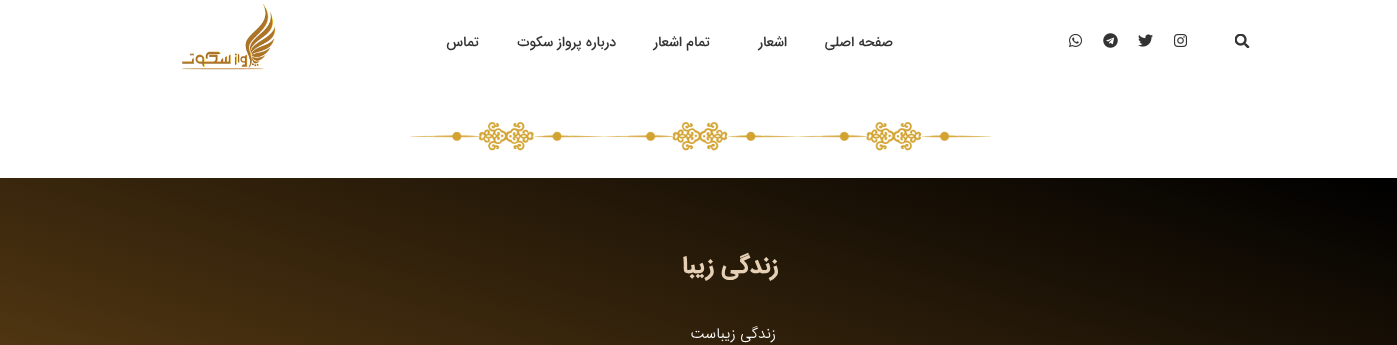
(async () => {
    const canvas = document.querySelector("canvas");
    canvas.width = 1397;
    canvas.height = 345;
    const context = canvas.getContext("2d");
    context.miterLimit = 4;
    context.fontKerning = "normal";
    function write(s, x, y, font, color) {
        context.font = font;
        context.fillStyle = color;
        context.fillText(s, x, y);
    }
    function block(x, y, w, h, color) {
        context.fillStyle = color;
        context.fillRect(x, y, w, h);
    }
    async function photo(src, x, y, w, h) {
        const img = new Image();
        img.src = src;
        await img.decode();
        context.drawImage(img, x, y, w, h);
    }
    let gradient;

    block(0, 0, 1397, 345, "rgb(255, 255, 255)");
    await photo("media/1.png", 1235, 34, 15, 14);
    await photo("media/2.png", 1174, 34, 14, 13);
    await photo("media/3.png", 1138, 34, 15, 13);
    await photo("media/4.png", 1103, 33, 15, 15);
    await photo("media/5.png", 1069, 33, 14, 14);
    context.direction = "rtl";
    write("صفحه اصلی", 893, 46, "500 14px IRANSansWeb", "rgb(51, 51, 51)");
    write("اشعار", 787, 46, "500 14px IRANSansWeb", "rgb(51, 51, 51)");
    write("تمام اشعار", 710, 46, "500 14px IRANSansWeb", "rgb(51, 51, 51)");
    write("درباره پرواز سکوت", 616, 46, "500 14px IRANSansWeb", "rgb(51, 51, 51)");
    write("تماس", 479, 46, "500 14px IRANSansWeb", "rgb(51, 51, 51)");
    await photo("media/6.png", 182, 4, 94, 66);
    await photo("media/7.png", 410, 122, 581, 29);
    gradient = context.createLinearGradient(880, 20, 517, 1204);
    gradient.addColorStop(0, "rgb(0, 0, 0)");
    gradient.addColorStop(1, "rgb(173, 116, 38)");
    context.fillStyle = gradient;
    context.fillRect(0, 178, 1397, 167);
    write("زندگی زیبا", 778, 273, "bold 24px IRANSansWeb", "rgb(229, 208, 182)");
    write("زندگی زیباست", 776, 338, "300 15px IRANSansWeb", "rgb(255, 255, 255)");
})();
